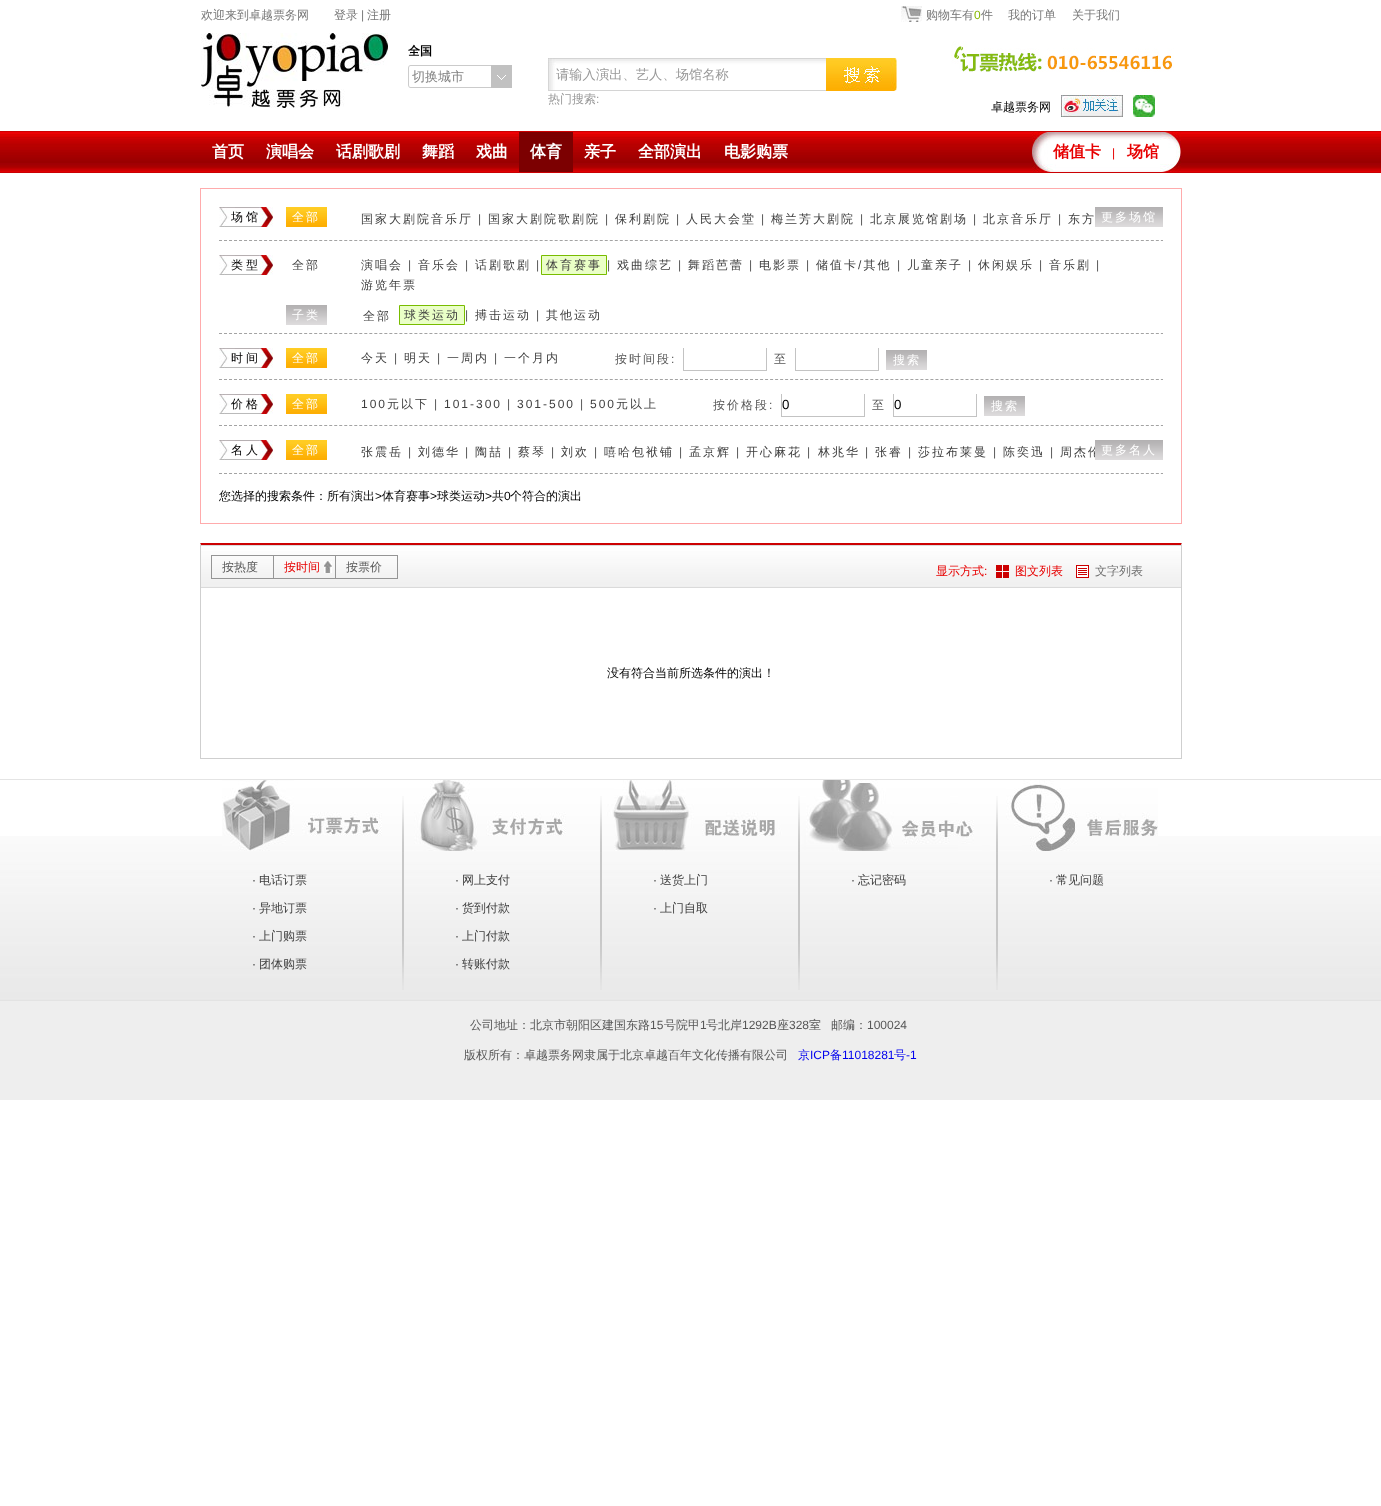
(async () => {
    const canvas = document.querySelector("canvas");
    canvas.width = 1381;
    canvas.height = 1506;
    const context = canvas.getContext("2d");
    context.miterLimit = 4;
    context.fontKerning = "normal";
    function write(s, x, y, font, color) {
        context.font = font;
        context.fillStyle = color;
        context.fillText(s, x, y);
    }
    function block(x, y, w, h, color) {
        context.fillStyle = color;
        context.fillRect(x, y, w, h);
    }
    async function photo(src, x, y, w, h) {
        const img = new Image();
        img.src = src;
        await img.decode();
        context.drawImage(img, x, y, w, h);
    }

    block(0, 0, 1381, 1506, "rgb(255, 255, 255)");
    await photo("media/1.png", 0, 131, 1381, 43);
    write("欢迎来到卓越票务网", 201, 19, "500 12px WenQuanYi Zen Hei", "rgb(120, 120, 120)");
    write("登录", 334, 19, "500 12px WenQuanYi Zen Hei", "rgb(120, 120, 120)");
    write("|", 361, 19, "12px Liberation Sans", "rgb(120, 120, 120)");
    write("注册", 367, 19, "500 12px WenQuanYi Zen Hei", "rgb(120, 120, 120)");
    await photo("media/2.png", 901, 6, 21, 16);
    write("购物车有", 926, 19, "500 12px WenQuanYi Zen Hei", "rgb(120, 120, 120)");
    write("0", 974, 19, "12px Liberation Sans", "rgb(135, 183, 0)");
    write("件", 981, 19, "500 12px WenQuanYi Zen Hei", "rgb(120, 120, 120)");
    write("我的订单", 1008, 19, "500 12px WenQuanYi Zen Hei", "rgb(120, 120, 120)");
    write("关于我们", 1072, 19, "500 12px WenQuanYi Zen Hei", "rgb(120, 120, 120)");
    await photo("media/3.png", 201, 33, 187, 75);
    write("全国", 408, 55, "bold 12px WenQuanYi Zen Hei", "rgb(0, 0, 0)");
    await photo("media/4.png", 408, 65, 104, 23);
    write("切换城市", 412, 81, "500 13px WenQuanYi Zen Hei", "rgb(129, 129, 129)");
    await photo("media/5.png", 548, 58, 278, 33);
    write("请输入演出、艺人、场馆名称", 556, 79, "500 13.3px WenQuanYi Zen Hei", "rgb(153, 153, 153)");
    await photo("media/6.png", 826, 58, 71, 33);
    write("热门搜索", 548, 103, "500 12px WenQuanYi Zen Hei", "rgb(153, 153, 153)");
    write(":", 596, 103, "12px Liberation Sans", "rgb(153, 153, 153)");
    await photo("media/7.png", 951, 41, 223, 31);
    write("卓越票务网", 991, 111, "500 12px WenQuanYi Zen Hei", "rgb(0, 0, 0)");
    await photo("media/8.png", 1061, 95, 62, 22);
    await photo("media/9.png", 1133, 95, 22, 22);
    write("首页", 212, 157, "bold 16px WenQuanYi Zen Hei", "rgb(255, 255, 255)");
    write("演唱会", 266, 157, "bold 16px WenQuanYi Zen Hei", "rgb(255, 255, 255)");
    write("话剧歌剧", 336, 157, "bold 16px WenQuanYi Zen Hei", "rgb(255, 255, 255)");
    write("舞蹈", 422, 157, "bold 16px WenQuanYi Zen Hei", "rgb(255, 255, 255)");
    write("戏曲", 476, 157, "bold 16px WenQuanYi Zen Hei", "rgb(255, 255, 255)");
    block(519, 132, 54, 40, "rgb(124, 0, 1)");
    write("体育", 530, 157, "bold 16px WenQuanYi Zen Hei", "rgb(255, 255, 255)");
    write("亲子", 584, 157, "bold 16px WenQuanYi Zen Hei", "rgb(255, 255, 255)");
    write("全部演出", 638, 157, "bold 16px WenQuanYi Zen Hei", "rgb(255, 255, 255)");
    write("电影购票", 724, 157, "bold 16px WenQuanYi Zen Hei", "rgb(255, 255, 255)");
    await photo("media/10.png", 1032, 132, 149, 40);
    write("储值卡", 1053, 157, "bold 16px WenQuanYi Zen Hei", "rgb(231, 0, 1)");
    write("|", 1112, 157, "12px Liberation Sans", "rgb(231, 0, 1)");
    write("场馆", 1127, 157, "bold 16px WenQuanYi Zen Hei", "rgb(231, 0, 1)");
    context.strokeStyle = "rgb(255, 171, 172)";
    context.strokeRect(200.5, 188.5, 981, 335);
    context.beginPath();
    context.moveTo(219, 240.5);
    context.lineTo(1163, 240.5);
    context.strokeStyle = "rgb(163, 163, 163)";
    context.setLineDash([3, 2.01]);
    context.stroke();
    await photo("media/11.png", 219, 207, 54, 20);
    context.letterSpacing = "3px";
    write("场馆", 231, 221, "500 12px WenQuanYi Zen Hei", "rgb(0, 0, 0)");
    await photo("media/12.png", 286, 207, 41, 20);
    context.letterSpacing = "2px";
    write("全部", 292, 221, "500 12px WenQuanYi Zen Hei", "rgb(255, 255, 255)");
    write("国家大剧院音乐厅", 361, 223, "500 12px WenQuanYi Zen Hei", "rgb(62, 62, 62)");
    write("|", 478, 223, "12px Liberation Sans", "rgb(87, 87, 87)");
    write("国家大剧院歌剧院", 488, 223, "500 12px WenQuanYi Zen Hei", "rgb(62, 62, 62)");
    write("|", 605, 223, "12px Liberation Sans", "rgb(87, 87, 87)");
    write("保利剧院", 615, 223, "500 12px WenQuanYi Zen Hei", "rgb(62, 62, 62)");
    write("|", 676, 223, "12px Liberation Sans", "rgb(87, 87, 87)");
    write("人民大会堂", 686, 223, "500 12px WenQuanYi Zen Hei", "rgb(62, 62, 62)");
    write("|", 761, 223, "12px Liberation Sans", "rgb(87, 87, 87)");
    write("梅兰芳大剧院", 771, 223, "500 12px WenQuanYi Zen Hei", "rgb(62, 62, 62)");
    write("|", 860, 223, "12px Liberation Sans", "rgb(87, 87, 87)");
    write("北京展览馆剧场", 870, 223, "500 12px WenQuanYi Zen Hei", "rgb(62, 62, 62)");
    write("|", 973, 223, "12px Liberation Sans", "rgb(87, 87, 87)");
    write("北京音乐厅", 983, 223, "500 12px WenQuanYi Zen Hei", "rgb(62, 62, 62)");
    write("|", 1058, 223, "12px Liberation Sans", "rgb(87, 87, 87)");
    write("东方", 1068, 223, "500 12px WenQuanYi Zen Hei", "rgb(62, 62, 62)");
    await photo("media/13.png", 1095, 207, 68, 20);
    write("更多场馆", 1101, 221, "500 12px WenQuanYi Zen Hei", "rgb(255, 255, 255)");
    context.beginPath();
    context.moveTo(219, 333.5);
    context.lineTo(1163, 333.5);
    context.stroke();
    await photo("media/11.png", 219, 255, 54, 20);
    context.letterSpacing = "3px";
    write("类型", 231, 269, "500 12px WenQuanYi Zen Hei", "rgb(0, 0, 0)");
    context.letterSpacing = "2px";
    write("全部", 292, 269, "500 12px WenQuanYi Zen Hei", "rgb(62, 62, 62)");
    write("演唱会", 361, 269, "500 12px WenQuanYi Zen Hei", "rgb(62, 62, 62)");
    write("|", 408, 269, "12px Liberation Sans", "rgb(87, 87, 87)");
    write("音乐会", 418, 269, "500 12px WenQuanYi Zen Hei", "rgb(62, 62, 62)");
    write("|", 465, 269, "12px Liberation Sans", "rgb(87, 87, 87)");
    write("话剧歌剧", 475, 269, "500 12px WenQuanYi Zen Hei", "rgb(62, 62, 62)");
    write("|", 536, 269, "12px Liberation Sans", "rgb(87, 87, 87)");
    context.fillStyle = "rgb(234, 255, 199)";
    context.beginPath();
    context.rect(541.5, 255.5, 65, 19);
    context.fill();
    context.strokeStyle = "rgb(120, 188, 0)";
    context.setLineDash([]);
    context.stroke();
    write("体育赛事", 546, 269, "500 12px WenQuanYi Zen Hei", "rgb(62, 62, 62)");
    write("|", 607, 269, "12px Liberation Sans", "rgb(87, 87, 87)");
    write("戏曲综艺", 617, 269, "500 12px WenQuanYi Zen Hei", "rgb(62, 62, 62)");
    write("|", 678, 269, "12px Liberation Sans", "rgb(87, 87, 87)");
    write("舞蹈芭蕾", 688, 269, "500 12px WenQuanYi Zen Hei", "rgb(62, 62, 62)");
    write("|", 749, 269, "12px Liberation Sans", "rgb(87, 87, 87)");
    write("电影票", 759, 269, "500 12px WenQuanYi Zen Hei", "rgb(62, 62, 62)");
    write("|", 806, 269, "12px Liberation Sans", "rgb(87, 87, 87)");
    write("储值卡 其他", 816, 269, "500 12px WenQuanYi Zen Hei", "rgb(62, 62, 62)");
    write("/", 858, 269, "12px Liberation Sans", "rgb(62, 62, 62)");
    write("|", 897, 269, "12px Liberation Sans", "rgb(87, 87, 87)");
    write("儿童亲子", 907, 269, "500 12px WenQuanYi Zen Hei", "rgb(62, 62, 62)");
    write("|", 968, 269, "12px Liberation Sans", "rgb(87, 87, 87)");
    write("休闲娱乐", 978, 269, "500 12px WenQuanYi Zen Hei", "rgb(62, 62, 62)");
    write("|", 1039, 269, "12px Liberation Sans", "rgb(87, 87, 87)");
    write("音乐剧", 1049, 269, "500 12px WenQuanYi Zen Hei", "rgb(62, 62, 62)");
    write("|", 1096, 269, "12px Liberation Sans", "rgb(87, 87, 87)");
    write("游览年票", 361, 289, "500 12px WenQuanYi Zen Hei", "rgb(62, 62, 62)");
    await photo("media/14.png", 286, 305, 41, 20);
    write("子类", 292, 319, "500 12px WenQuanYi Zen Hei", "rgb(255, 255, 255)");
    write("全部", 363, 320, "500 12px WenQuanYi Zen Hei", "rgb(62, 62, 62)");
    context.fillStyle = "rgb(234, 255, 199)";
    context.beginPath();
    context.rect(399.5, 305.5, 65, 19);
    context.fill();
    context.stroke();
    write("球类运动", 404, 319, "500 12px WenQuanYi Zen Hei", "rgb(62, 62, 62)");
    write("|", 465, 319, "12px Liberation Sans", "rgb(87, 87, 87)");
    write("搏击运动", 475, 319, "500 12px WenQuanYi Zen Hei", "rgb(62, 62, 62)");
    write("|", 536, 319, "12px Liberation Sans", "rgb(87, 87, 87)");
    write("其他运动", 546, 319, "500 12px WenQuanYi Zen Hei", "rgb(62, 62, 62)");
    context.beginPath();
    context.moveTo(219, 379.5);
    context.lineTo(1163, 379.5);
    context.strokeStyle = "rgb(163, 163, 163)";
    context.setLineDash([3, 2.01]);
    context.stroke();
    await photo("media/11.png", 219, 348, 54, 20);
    context.letterSpacing = "3px";
    write("时间", 231, 362, "500 12px WenQuanYi Zen Hei", "rgb(0, 0, 0)");
    await photo("media/12.png", 286, 348, 41, 20);
    context.letterSpacing = "2px";
    write("全部", 292, 362, "500 12px WenQuanYi Zen Hei", "rgb(255, 255, 255)");
    write("今天", 361, 362, "500 12px WenQuanYi Zen Hei", "rgb(62, 62, 62)");
    write("|", 394, 362, "12px Liberation Sans", "rgb(87, 87, 87)");
    write("明天", 404, 362, "500 12px WenQuanYi Zen Hei", "rgb(62, 62, 62)");
    write("|", 437, 362, "12px Liberation Sans", "rgb(87, 87, 87)");
    write("一周内", 447, 362, "500 12px WenQuanYi Zen Hei", "rgb(62, 62, 62)");
    write("|", 494, 362, "12px Liberation Sans", "rgb(87, 87, 87)");
    write("一个月内", 504, 362, "500 12px WenQuanYi Zen Hei", "rgb(62, 62, 62)");
    write("按时间段", 615, 363, "500 12px WenQuanYi Zen Hei", "rgb(87, 87, 87)");
    write(":", 671, 363, "12px Liberation Sans", "rgb(87, 87, 87)");
    context.save();
    context.beginPath();
    context.rect(219, 348, 917, 23);
    context.clip();
    context.strokeStyle = "rgb(195, 195, 195)";
    context.setLineDash([]);
    context.strokeRect(683.5, 346.5, 83, 24);
    context.restore();
    write("至", 774, 363, "500 12px WenQuanYi Zen Hei", "rgb(87, 87, 87)");
    context.save();
    context.beginPath();
    context.rect(219, 348, 917, 23);
    context.clip();
    context.strokeStyle = "rgb(195, 195, 195)";
    context.setLineDash([]);
    context.strokeRect(795.5, 346.5, 83, 24);
    context.restore();
    await photo("media/14.png", 886, 350, 41, 20);
    write("搜索", 893, 364, "500 12px WenQuanYi Zen Hei", "rgb(255, 255, 255)");
    context.beginPath();
    context.moveTo(219, 425.5);
    context.lineTo(1163, 425.5);
    context.stroke();
    await photo("media/11.png", 219, 394, 54, 20);
    context.letterSpacing = "3px";
    write("价格", 231, 408, "500 12px WenQuanYi Zen Hei", "rgb(0, 0, 0)");
    await photo("media/12.png", 286, 394, 41, 20);
    context.letterSpacing = "2px";
    write("全部", 292, 408, "500 12px WenQuanYi Zen Hei", "rgb(255, 255, 255)");
    write("100", 361, 408, "12px Liberation Sans", "rgb(62, 62, 62)");
    write("元以下", 387, 408, "500 12px WenQuanYi Zen Hei", "rgb(62, 62, 62)");
    write("|", 434, 408, "12px Liberation Sans", "rgb(87, 87, 87)");
    write("101-300", 444, 408, "12px Liberation Sans", "rgb(62, 62, 62)");
    write("|", 507, 408, "12px Liberation Sans", "rgb(87, 87, 87)");
    write("301-500", 517, 408, "12px Liberation Sans", "rgb(62, 62, 62)");
    write("|", 580, 408, "12px Liberation Sans", "rgb(87, 87, 87)");
    write("500", 590, 408, "12px Liberation Sans", "rgb(62, 62, 62)");
    write("元以上", 616, 408, "500 12px WenQuanYi Zen Hei", "rgb(62, 62, 62)");
    write("按价格段", 713, 409, "500 12px WenQuanYi Zen Hei", "rgb(87, 87, 87)");
    write(":", 769, 409, "12px Liberation Sans", "rgb(87, 87, 87)");
    context.save();
    context.beginPath();
    context.rect(219, 394, 917, 23);
    context.clip();
    context.strokeStyle = "rgb(195, 195, 195)";
    context.setLineDash([]);
    context.strokeRect(781.5, 392.5, 83, 24);
    context.restore();
    context.letterSpacing = "0px";
    write("0", 782, 409, "13.3px Liberation Sans", "rgb(0, 0, 0)");
    context.letterSpacing = "2px";
    write("至", 872, 409, "500 12px WenQuanYi Zen Hei", "rgb(87, 87, 87)");
    context.save();
    context.beginPath();
    context.rect(219, 394, 917, 23);
    context.clip();
    context.strokeStyle = "rgb(195, 195, 195)";
    context.setLineDash([]);
    context.strokeRect(893.5, 392.5, 83, 24);
    context.restore();
    context.letterSpacing = "0px";
    write("0", 894, 409, "13.3px Liberation Sans", "rgb(0, 0, 0)");
    await photo("media/14.png", 984, 396, 41, 20);
    context.letterSpacing = "2px";
    write("搜索", 991, 410, "500 12px WenQuanYi Zen Hei", "rgb(255, 255, 255)");
    context.beginPath();
    context.moveTo(219, 473.5);
    context.lineTo(1163, 473.5);
    context.stroke();
    await photo("media/11.png", 219, 440, 54, 20);
    context.letterSpacing = "3px";
    write("名人", 231, 454, "500 12px WenQuanYi Zen Hei", "rgb(0, 0, 0)");
    await photo("media/12.png", 286, 440, 41, 20);
    context.letterSpacing = "2px";
    write("全部", 292, 454, "500 12px WenQuanYi Zen Hei", "rgb(255, 255, 255)");
    write("张震岳", 361, 456, "500 12px WenQuanYi Zen Hei", "rgb(62, 62, 62)");
    write("|", 408, 456, "12px Liberation Sans", "rgb(87, 87, 87)");
    write("刘德华", 418, 456, "500 12px WenQuanYi Zen Hei", "rgb(62, 62, 62)");
    write("|", 465, 456, "12px Liberation Sans", "rgb(87, 87, 87)");
    write("陶喆", 475, 456, "500 12px WenQuanYi Zen Hei", "rgb(62, 62, 62)");
    write("|", 508, 456, "12px Liberation Sans", "rgb(87, 87, 87)");
    write("蔡琴", 518, 456, "500 12px WenQuanYi Zen Hei", "rgb(62, 62, 62)");
    write("|", 551, 456, "12px Liberation Sans", "rgb(87, 87, 87)");
    write("刘欢", 561, 456, "500 12px WenQuanYi Zen Hei", "rgb(62, 62, 62)");
    write("|", 594, 456, "12px Liberation Sans", "rgb(87, 87, 87)");
    write("嘻哈包袱铺", 604, 456, "500 12px WenQuanYi Zen Hei", "rgb(62, 62, 62)");
    write("|", 679, 456, "12px Liberation Sans", "rgb(87, 87, 87)");
    write("孟京辉", 689, 456, "500 12px WenQuanYi Zen Hei", "rgb(62, 62, 62)");
    write("|", 736, 456, "12px Liberation Sans", "rgb(87, 87, 87)");
    write("开心麻花", 746, 456, "500 12px WenQuanYi Zen Hei", "rgb(62, 62, 62)");
    write("|", 807, 456, "12px Liberation Sans", "rgb(87, 87, 87)");
    write("林兆华", 818, 456, "500 12px WenQuanYi Zen Hei", "rgb(62, 62, 62)");
    write("|", 865, 456, "12px Liberation Sans", "rgb(87, 87, 87)");
    write("张睿", 875, 456, "500 12px WenQuanYi Zen Hei", "rgb(62, 62, 62)");
    write("|", 908, 456, "12px Liberation Sans", "rgb(87, 87, 87)");
    write("莎拉布莱曼", 918, 456, "500 12px WenQuanYi Zen Hei", "rgb(62, 62, 62)");
    write("|", 993, 456, "12px Liberation Sans", "rgb(87, 87, 87)");
    write("陈奕迅", 1003, 456, "500 12px WenQuanYi Zen Hei", "rgb(62, 62, 62)");
    write("|", 1050, 456, "12px Liberation Sans", "rgb(87, 87, 87)");
    write("周杰伦", 1060, 456, "500 12px WenQuanYi Zen Hei", "rgb(62, 62, 62)");
    await photo("media/13.png", 1095, 440, 68, 20);
    write("更多名人", 1101, 454, "500 12px WenQuanYi Zen Hei", "rgb(255, 255, 255)");
    context.letterSpacing = "0px";
    write("您选择的搜索条件：所有演出", 219, 500, "500 12px WenQuanYi Zen Hei", "rgb(0, 0, 0)");
    write(">", 375, 500, "12px Liberation Sans", "rgb(0, 0, 0)");
    write("体育赛事", 382, 500, "500 12px WenQuanYi Zen Hei", "rgb(0, 0, 0)");
    write(">", 430, 500, "12px Liberation Sans", "rgb(0, 0, 0)");
    write("球类运动", 437, 500, "500 12px WenQuanYi Zen Hei", "rgb(0, 0, 0)");
    write(">", 485, 500, "12px Liberation Sans", "rgb(0, 0, 0)");
    write("共", 492, 500, "500 12px WenQuanYi Zen Hei", "rgb(0, 0, 0)");
    write("0", 504, 500, "12px Liberation Sans", "rgb(0, 0, 0)");
    write("个符合的演出", 510, 500, "500 12px WenQuanYi Zen Hei", "rgb(0, 0, 0)");
    context.fillStyle = "rgb(204, 0, 1)";
    context.beginPath();
    context.moveTo(200, 543);
    context.lineTo(1182, 543);
    context.lineTo(1181, 545);
    context.lineTo(201, 545);
    context.closePath();
    context.fill();
    context.fillStyle = "rgb(207, 207, 207)";
    context.beginPath();
    context.moveTo(1182, 543);
    context.lineTo(1182, 759);
    context.lineTo(1181, 758);
    context.lineTo(1181, 545);
    context.closePath();
    context.fill();
    block(200, 758, 982, 1, "rgb(207, 207, 207)");
    context.beginPath();
    context.moveTo(200, 759);
    context.lineTo(200, 543);
    context.lineTo(201, 545);
    context.lineTo(201, 758);
    context.closePath();
    context.fill();
    await photo("media/15.png", 201, 545, 980, 43);
    block(211, 555, 187, 1, "rgb(149, 149, 149)");
    block(397, 555, 1, 24, "rgb(149, 149, 149)");
    block(211, 578, 187, 1, "rgb(149, 149, 149)");
    block(211, 556, 1, 22, "rgb(149, 149, 149)");
    write("按热度", 222, 571, "500 12px WenQuanYi Zen Hei", "rgb(87, 87, 87)");
    await photo("media/16.png", 324, 561, 8, 12);
    block(273, 556, 1, 22, "rgb(149, 149, 149)");
    write("按时间", 284, 571, "500 12px WenQuanYi Zen Hei", "rgb(231, 0, 1)");
    block(335, 556, 1, 22, "rgb(149, 149, 149)");
    write("按票价", 346, 571, "500 12px WenQuanYi Zen Hei", "rgb(87, 87, 87)");
    write("显示方式", 936, 575, "500 12px WenQuanYi Zen Hei", "rgb(231, 0, 1)");
    write(":", 984, 575, "12px Liberation Sans", "rgb(231, 0, 1)");
    await photo("media/17.png", 996, 565, 13, 13);
    write("图文列表", 1015, 575, "500 12px WenQuanYi Zen Hei", "rgb(231, 0, 1)");
    await photo("media/18.png", 1076, 565, 13, 13);
    write("文字列表", 1095, 575, "500 12px WenQuanYi Zen Hei", "rgb(112, 112, 112)");
    write("没有符合当前所选条件的演出！", 607, 677, "500 12px WenQuanYi Zen Hei", "rgb(0, 0, 0)");
    await photo("media/19.png", 0, 836, 1381, 264);
    block(0, 779, 1381, 1, "rgb(228, 228, 228)");
    await photo("media/20.png", 222, 780, 936, 71);
    write("·", 252, 884, "12px Liberation Sans", "rgb(62, 62, 62)");
    write("电话订票", 259, 884, "500 12px WenQuanYi Zen Hei", "rgb(62, 62, 62)");
    write("·", 252, 912, "12px Liberation Sans", "rgb(62, 62, 62)");
    write("异地订票", 259, 912, "500 12px WenQuanYi Zen Hei", "rgb(62, 62, 62)");
    write("·", 252, 940, "12px Liberation Sans", "rgb(62, 62, 62)");
    write("上门购票", 259, 940, "500 12px WenQuanYi Zen Hei", "rgb(62, 62, 62)");
    write("·", 252, 968, "12px Liberation Sans", "rgb(62, 62, 62)");
    write("团体购票", 259, 968, "500 12px WenQuanYi Zen Hei", "rgb(62, 62, 62)");
    await photo("media/21.png", 402, 796, 2, 194);
    write("·", 455, 884, "12px Liberation Sans", "rgb(62, 62, 62)");
    write("网上支付", 462, 884, "500 12px WenQuanYi Zen Hei", "rgb(62, 62, 62)");
    write("·", 455, 912, "12px Liberation Sans", "rgb(62, 62, 62)");
    write("货到付款", 462, 912, "500 12px WenQuanYi Zen Hei", "rgb(62, 62, 62)");
    write("·", 455, 940, "12px Liberation Sans", "rgb(62, 62, 62)");
    write("上门付款", 462, 940, "500 12px WenQuanYi Zen Hei", "rgb(62, 62, 62)");
    write("·", 455, 968, "12px Liberation Sans", "rgb(62, 62, 62)");
    write("转账付款", 462, 968, "500 12px WenQuanYi Zen Hei", "rgb(62, 62, 62)");
    await photo("media/21.png", 600, 796, 2, 194);
    write("·", 653, 884, "12px Liberation Sans", "rgb(62, 62, 62)");
    write("送货上门", 660, 884, "500 12px WenQuanYi Zen Hei", "rgb(62, 62, 62)");
    write("·", 653, 912, "12px Liberation Sans", "rgb(62, 62, 62)");
    write("上门自取", 660, 912, "500 12px WenQuanYi Zen Hei", "rgb(62, 62, 62)");
    await photo("media/21.png", 798, 796, 2, 194);
    write("·", 851, 884, "12px Liberation Sans", "rgb(62, 62, 62)");
    write("忘记密码", 858, 884, "500 12px WenQuanYi Zen Hei", "rgb(62, 62, 62)");
    await photo("media/21.png", 996, 796, 2, 194);
    write("·", 1049, 884, "12px Liberation Sans", "rgb(62, 62, 62)");
    write("常见问题", 1056, 884, "500 12px WenQuanYi Zen Hei", "rgb(62, 62, 62)");
    write("公司地址：北京市朝阳区建国东路", 470, 1029, "500 12px WenQuanYi Zen Hei", "rgb(87, 87, 87)");
    write("15", 650, 1029, "12px Liberation Sans", "rgb(87, 87, 87)");
    write("号院甲", 664, 1029, "500 12px WenQuanYi Zen Hei", "rgb(87, 87, 87)");
    write("1", 700, 1029, "12px Liberation Sans", "rgb(87, 87, 87)");
    write("号北岸", 706, 1029, "500 12px WenQuanYi Zen Hei", "rgb(87, 87, 87)");
    write("1292B", 742, 1029, "12px Liberation Sans", "rgb(87, 87, 87)");
    write("座", 777, 1029, "500 12px WenQuanYi Zen Hei", "rgb(87, 87, 87)");
    write("328", 789, 1029, "12px Liberation Sans", "rgb(87, 87, 87)");
    write("室", 809, 1029, "500 12px WenQuanYi Zen Hei", "rgb(87, 87, 87)");
    write("邮编：", 831, 1029, "500 12px WenQuanYi Zen Hei", "rgb(87, 87, 87)");
    write("100024", 867, 1029, "12px Liberation Sans", "rgb(87, 87, 87)");
    write("版权所有：卓越票务网隶属于北京卓越百年文化传播有限公司", 464, 1059, "500 12px WenQuanYi Zen Hei", "rgb(87, 87, 87)");
    write("京", 798, 1059, "500 12px WenQuanYi Zen Hei", "rgb(0, 0, 238)");
    write("ICP", 810, 1059, "12px Liberation Sans", "rgb(0, 0, 238)");
    write("备", 830, 1059, "500 12px WenQuanYi Zen Hei", "rgb(0, 0, 238)");
    write("11018281", 842, 1059, "12px Liberation Sans", "rgb(0, 0, 238)");
    write("号", 894, 1059, "500 12px WenQuanYi Zen Hei", "rgb(0, 0, 238)");
    write("-1", 906, 1059, "12px Liberation Sans", "rgb(0, 0, 238)");
})();
